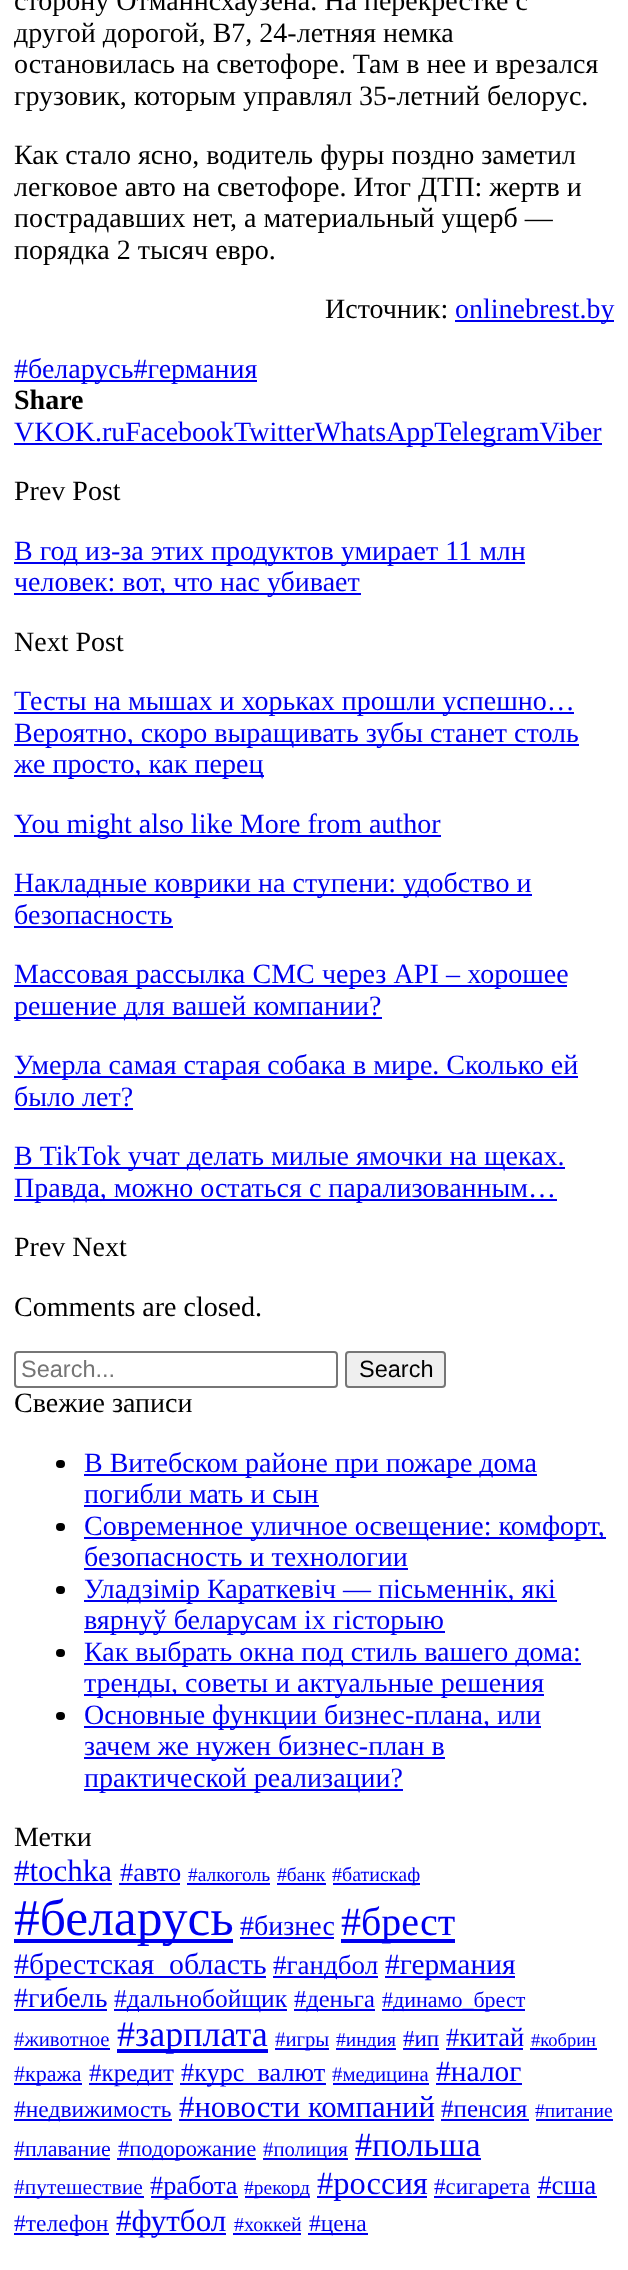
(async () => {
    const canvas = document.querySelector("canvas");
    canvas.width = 628;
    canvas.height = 2270;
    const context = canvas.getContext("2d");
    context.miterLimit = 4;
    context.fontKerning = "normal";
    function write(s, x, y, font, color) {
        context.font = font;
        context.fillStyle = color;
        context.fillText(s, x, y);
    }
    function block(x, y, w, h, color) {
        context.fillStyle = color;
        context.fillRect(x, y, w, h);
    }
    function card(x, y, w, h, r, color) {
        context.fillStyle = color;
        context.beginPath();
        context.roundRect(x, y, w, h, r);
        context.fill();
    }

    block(0, 0, 628, 2270, "rgb(255, 255, 255)");
    write("сторону Отманнсхаузена. На перекрестке с", 14, 10, "28px Liberation Serif", "rgb(0, 0, 0)");
    write("другой дорогой, B7, 24-летняя немка", 14, 42, "28px Liberation Serif", "rgb(0, 0, 0)");
    write("остановилась на светофоре. Там в нее и врезался", 14, 73, "28px Liberation Serif", "rgb(0, 0, 0)");
    write("грузовик, которым управлял 35-летний белорус.", 14, 105, "28px Liberation Serif", "rgb(0, 0, 0)");
    write("Как стало ясно, водитель фуры поздно заметил", 14, 164, "28px Liberation Serif", "rgb(0, 0, 0)");
    write("легковое авто на светофоре. Итог ДТП: жертв и", 14, 196, "28px Liberation Serif", "rgb(0, 0, 0)");
    write("пострадавших нет, а материальный ущерб —", 14, 227, "28px Liberation Serif", "rgb(0, 0, 0)");
    write("порядка 2 тысяч евро.", 14, 259, "28px Liberation Serif", "rgb(0, 0, 0)");
    write("Источник:", 325, 318, "28px Liberation Serif", "rgb(0, 0, 0)");
    block(455, 320, 159, 2, "rgb(0, 0, 238)");
    write("onlinebrest.by", 455, 318, "28px Liberation Serif", "rgb(0, 0, 238)");
    block(14, 380, 243, 2, "rgb(0, 0, 238)");
    write("#беларусь#германия", 14, 378, "28px Liberation Serif", "rgb(0, 0, 238)");
    write("Share", 14, 409, "bold 28px Liberation Serif", "rgb(0, 0, 0)");
    block(14, 443, 525, 2, "rgb(0, 0, 238)");
    write("VKOK.ruFacebookTwitterWhatsAppTelegramViber", 14, 441, "28px Liberation Serif", "rgb(0, 0, 238)");
    block(539, 443, 63, 2, "rgb(0, 0, 238)");
    write("Prev Post", 14, 500, "28px Liberation Serif", "rgb(0, 0, 0)");
    block(14, 562, 511, 2, "rgb(0, 0, 238)");
    write("В год из-за этих продуктов умирает 11 млн", 14, 560, "28px Liberation Serif", "rgb(0, 0, 238)");
    block(14, 593, 347, 2, "rgb(0, 0, 238)");
    write("человек: вот, что нас убивает", 14, 591, "28px Liberation Serif", "rgb(0, 0, 238)");
    write("Next Post", 14, 651, "28px Liberation Serif", "rgb(0, 0, 0)");
    block(14, 712, 560, 2, "rgb(0, 0, 238)");
    write("Тесты на мышах и хорьках прошли успешно…", 14, 710, "28px Liberation Serif", "rgb(0, 0, 238)");
    block(14, 744, 565, 2, "rgb(0, 0, 238)");
    write("Вероятно, скоро выращивать зубы станет столь", 14, 742, "28px Liberation Serif", "rgb(0, 0, 238)");
    block(14, 775, 250, 2, "rgb(0, 0, 238)");
    write("же просто, как перец", 14, 773, "28px Liberation Serif", "rgb(0, 0, 238)");
    block(14, 835, 427, 2, "rgb(0, 0, 238)");
    write("You might also like More from author", 14, 833, "28px Liberation Serif", "rgb(0, 0, 238)");
    block(14, 894, 518, 2, "rgb(0, 0, 238)");
    write("Накладные коврики на ступени: удобство и", 14, 892, "28px Liberation Serif", "rgb(0, 0, 238)");
    write("безопасность", 14, 924, "28px Liberation Serif", "rgb(0, 0, 238)");
    block(14, 926, 159, 2, "rgb(0, 0, 238)");
    block(14, 985, 553, 2, "rgb(0, 0, 238)");
    context.wordSpacing = "0.25px";
    write("Массовая рассылка СМС через API – хорошее", 14, 983, "28px Liberation Serif", "rgb(0, 0, 238)");
    block(14, 1017, 368, 2, "rgb(0, 0, 238)");
    context.wordSpacing = "0px";
    write("решение для вашей компании?", 14, 1015, "28px Liberation Serif", "rgb(0, 0, 238)");
    block(14, 1076, 564, 2, "rgb(0, 0, 238)");
    write("Умерла самая старая собака в мире. Сколько ей", 14, 1074, "28px Liberation Serif", "rgb(0, 0, 238)");
    write("было лет?", 14, 1106, "28px Liberation Serif", "rgb(0, 0, 238)");
    block(14, 1108, 119, 2, "rgb(0, 0, 238)");
    block(14, 1167, 551, 2, "rgb(0, 0, 238)");
    write("В TikTok учат делать милые ямочки на щеках.", 14, 1165, "28px Liberation Serif", "rgb(0, 0, 238)");
    block(14, 1199, 543, 2, "rgb(0, 0, 238)");
    write("Правда, можно остаться с парализованным…", 14, 1197, "28px Liberation Serif", "rgb(0, 0, 238)");
    write("Prev Next", 14, 1256, "28px Liberation Serif", "rgb(0, 0, 0)");
    write("Comments are closed.", 14, 1316, "28px Liberation Serif", "rgb(0, 0, 0)");
    context.beginPath();
    context.roundRect(15, 1352, 322, 35, 3);
    context.strokeStyle = "rgb(118, 118, 118)";
    context.lineWidth = 2;
    context.stroke();
    write("Search...", 21, 1377, "23.5px Liberation Sans", "rgb(117, 117, 117)");
    context.fillStyle = "rgb(239, 239, 239)";
    context.beginPath();
    context.roundRect(346, 1352, 99, 35, 3);
    context.fill();
    context.stroke();
    write("Search", 359, 1377, "23.5px Liberation Sans", "rgb(0, 0, 0)");
    write("Свежие записи", 14, 1412, "28px Liberation Serif", "rgb(0, 0, 0)");
    card(56, 1460, 9, 8, 4, "rgb(0, 0, 0)");
    block(84, 1474, 453, 2, "rgb(0, 0, 238)");
    write("В Витебском районе при пожаре дома", 84, 1472, "28px Liberation Serif", "rgb(0, 0, 238)");
    write("погибли мать и сын", 84, 1503, "28px Liberation Serif", "rgb(0, 0, 238)");
    block(84, 1505, 235, 2, "rgb(0, 0, 238)");
    card(56, 1523, 9, 8, 4, "rgb(0, 0, 0)");
    block(84, 1537, 522, 2, "rgb(0, 0, 238)");
    write("Современное уличное освещение: комфорт,", 84, 1535, "28px Liberation Serif", "rgb(0, 0, 238)");
    write("безопасность и технологии", 84, 1566, "28px Liberation Serif", "rgb(0, 0, 238)");
    block(84, 1568, 324, 2, "rgb(0, 0, 238)");
    card(56, 1586, 9, 8, 4, "rgb(0, 0, 0)");
    block(84, 1600, 473, 2, "rgb(0, 0, 238)");
    write("Уладзімір Караткевіч — пісьменнік, які", 84, 1598, "28px Liberation Serif", "rgb(0, 0, 238)");
    block(84, 1631, 361, 2, "rgb(0, 0, 238)");
    write("вярнуў беларусам іх гісторыю", 84, 1629, "28px Liberation Serif", "rgb(0, 0, 238)");
    card(56, 1649, 9, 8, 4, "rgb(0, 0, 0)");
    block(84, 1663, 497, 2, "rgb(0, 0, 238)");
    write("Как выбрать окна под стиль вашего дома:", 84, 1661, "28px Liberation Serif", "rgb(0, 0, 238)");
    block(84, 1694, 460, 2, "rgb(0, 0, 238)");
    write("тренды, советы и актуальные решения", 84, 1692, "28px Liberation Serif", "rgb(0, 0, 238)");
    card(56, 1712, 9, 8, 4, "rgb(0, 0, 0)");
    block(84, 1726, 457, 2, "rgb(0, 0, 238)");
    write("Основные функции бизнес-плана, или", 84, 1724, "28px Liberation Serif", "rgb(0, 0, 238)");
    block(84, 1757, 361, 2, "rgb(0, 0, 238)");
    write("зачем же нужен бизнес-план в", 84, 1755, "28px Liberation Serif", "rgb(0, 0, 238)");
    block(84, 1789, 319, 2, "rgb(0, 0, 238)");
    write("практической реализации?", 84, 1787, "28px Liberation Serif", "rgb(0, 0, 238)");
    write("Метки", 14, 1846, "28px Liberation Serif", "rgb(0, 0, 0)");
    write("#tochka", 14, 1881, "31px Liberation Serif", "rgb(0, 0, 238)");
    block(14, 1883, 98, 2, "rgb(0, 0, 238)");
    write("#авто", 120, 1881, "26.5px Liberation Serif", "rgb(0, 0, 238)");
    block(119, 1883, 61, 2, "rgb(0, 0, 238)");
    write("#алкоголь", 188, 1881, "19.5px Liberation Serif", "rgb(0, 0, 238)");
    block(187, 1883, 83, 2, "rgb(0, 0, 238)");
    write("#банк", 277, 1881, "19.5px Liberation Serif", "rgb(0, 0, 238)");
    block(277, 1883, 49, 2, "rgb(0, 0, 238)");
    block(333, 1883, 87, 2, "rgb(0, 0, 238)");
    write("#батискаф", 332, 1881, "20px Liberation Serif", "rgb(0, 0, 238)");
    block(14, 1939, 219, 4, "rgb(0, 0, 238)");
    write("#беларусь", 14, 1935, "51.5px Liberation Serif", "rgb(0, 0, 238)");
    write("#бизнес", 240, 1935, "28px Liberation Serif", "rgb(0, 0, 238)");
    block(240, 1937, 94, 2, "rgb(0, 0, 238)");
    block(341, 1939, 114, 4, "rgb(0, 0, 238)");
    write("#брест", 341, 1935, "40px Liberation Serif", "rgb(0, 0, 238)");
    block(14, 1976, 252, 2, "rgb(0, 0, 238)");
    write("#брестская_область", 14, 1974, "29.9px Liberation Serif", "rgb(0, 0, 238)");
    block(273, 1976, 105, 2, "rgb(0, 0, 238)");
    write("#гандбол", 273, 1974, "27px Liberation Serif", "rgb(0, 0, 238)");
    block(385, 1976, 130, 2, "rgb(0, 0, 238)");
    write("#германия", 385, 1974, "29.5px Liberation Serif", "rgb(0, 0, 238)");
    write("#гибель", 14, 2007, "28px Liberation Serif", "rgb(0, 0, 238)");
    block(14, 2009, 93, 2, "rgb(0, 0, 238)");
    block(114, 2009, 173, 2, "rgb(0, 0, 238)");
    write("#дальнобойщик", 114, 2007, "25.5px Liberation Serif", "rgb(0, 0, 238)");
    block(294, 2009, 81, 2, "rgb(0, 0, 238)");
    write("#деньга", 294, 2007, "24.5px Liberation Serif", "rgb(0, 0, 238)");
    block(382, 2009, 143, 2, "rgb(0, 0, 238)");
    write("#динамо_брест", 382, 2007, "22px Liberation Serif", "rgb(0, 0, 238)");
    write("#животное", 14, 2046, "20.75px Liberation Serif", "rgb(0, 0, 238)");
    block(14, 2048, 96, 2, "rgb(0, 0, 238)");
    block(117, 2049, 151, 4, "rgb(0, 0, 238)");
    write("#зарплата", 117, 2046, "36px Liberation Serif", "rgb(0, 0, 238)");
    block(275, 2048, 54, 2, "rgb(0, 0, 238)");
    write("#игры", 275, 2046, "20.75px Liberation Serif", "rgb(0, 0, 238)");
    block(336, 2048, 60, 2, "rgb(0, 0, 238)");
    write("#индия", 336, 2046, "19.5px Liberation Serif", "rgb(0, 0, 238)");
    write("#ип", 403, 2046, "23px Liberation Serif", "rgb(0, 0, 238)");
    block(403, 2048, 36, 2, "rgb(0, 0, 238)");
    write("#китай", 446, 2046, "26.5px Liberation Serif", "rgb(0, 0, 238)");
    block(446, 2048, 77, 2, "rgb(0, 0, 238)");
    block(530, 2048, 67, 2, "rgb(0, 0, 238)");
    write("#кобрин", 531, 2046, "18.5px Liberation Serif", "rgb(0, 0, 238)");
    block(14, 2083, 68, 2, "rgb(0, 0, 238)");
    write("#кража", 14, 2081, "22px Liberation Serif", "rgb(0, 0, 238)");
    block(89, 2083, 84, 2, "rgb(0, 0, 238)");
    write("#кредит", 89, 2081, "25px Liberation Serif", "rgb(0, 0, 238)");
    block(180, 2083, 146, 2, "rgb(0, 0, 238)");
    write("#курс_валют", 181, 2081, "26.25px Liberation Serif", "rgb(0, 0, 238)");
    block(333, 2083, 96, 2, "rgb(0, 0, 238)");
    write("#медицина", 332, 2081, "20.75px Liberation Serif", "rgb(0, 0, 238)");
    write("#налог", 436, 2081, "29.5px Liberation Serif", "rgb(0, 0, 238)");
    block(436, 2083, 86, 2, "rgb(0, 0, 238)");
    block(14, 2119, 158, 2, "rgb(0, 0, 238)");
    write("#недвижимость", 14, 2117, "23.5px Liberation Serif", "rgb(0, 0, 238)");
    write("#новости компаний", 179, 2117, "30.75px Liberation Serif", "rgb(0, 0, 238)");
    block(179, 2119, 255, 2, "rgb(0, 0, 238)");
    write("#пенсия", 441, 2117, "25px Liberation Serif", "rgb(0, 0, 238)");
    block(441, 2119, 88, 2, "rgb(0, 0, 238)");
    write("#питание", 535, 2117, "19.5px Liberation Serif", "rgb(0, 0, 238)");
    block(536, 2119, 77, 2, "rgb(0, 0, 238)");
    write("#плавание", 14, 2156, "22px Liberation Serif", "rgb(0, 0, 238)");
    block(14, 2158, 96, 2, "rgb(0, 0, 238)");
    block(117, 2158, 139, 2, "rgb(0, 0, 238)");
    write("#подорожание", 118, 2156, "22.5px Liberation Serif", "rgb(0, 0, 238)");
    block(263, 2158, 85, 2, "rgb(0, 0, 238)");
    write("#полиция", 263, 2156, "20.75px Liberation Serif", "rgb(0, 0, 238)");
    write("#польша", 355, 2156, "34px Liberation Serif", "rgb(0, 0, 238)");
    block(355, 2158, 126, 2, "rgb(0, 0, 238)");
    block(14, 2196, 130, 2, "rgb(0, 0, 238)");
    write("#путешествие", 14, 2194, "21.5px Liberation Serif", "rgb(0, 0, 238)");
    block(151, 2196, 87, 2, "rgb(0, 0, 238)");
    write("#работа", 150, 2194, "26.25px Liberation Serif", "rgb(0, 0, 238)");
    block(245, 2196, 65, 2, "rgb(0, 0, 238)");
    write("#рекорд", 244, 2194, "19.5px Liberation Serif", "rgb(0, 0, 238)");
    block(317, 2196, 110, 2, "rgb(0, 0, 238)");
    write("#россия", 317, 2194, "32.5px Liberation Serif", "rgb(0, 0, 238)");
    block(434, 2196, 96, 2, "rgb(0, 0, 238)");
    write("#сигарета", 434, 2194, "23px Liberation Serif", "rgb(0, 0, 238)");
    write("#сша", 538, 2194, "27px Liberation Serif", "rgb(0, 0, 238)");
    block(537, 2196, 60, 2, "rgb(0, 0, 238)");
    block(14, 2233, 95, 2, "rgb(0, 0, 238)");
    write("#телефон", 14, 2231, "23.5px Liberation Serif", "rgb(0, 0, 238)");
    block(116, 2233, 110, 2, "rgb(0, 0, 238)");
    write("#футбол", 116, 2231, "31px Liberation Serif", "rgb(0, 0, 238)");
    write("#хоккей", 234, 2231, "20px Liberation Serif", "rgb(0, 0, 238)");
    block(233, 2233, 68, 2, "rgb(0, 0, 238)");
    block(308, 2233, 60, 2, "rgb(0, 0, 238)");
    write("#цена", 309, 2231, "23.5px Liberation Serif", "rgb(0, 0, 238)");
})();
